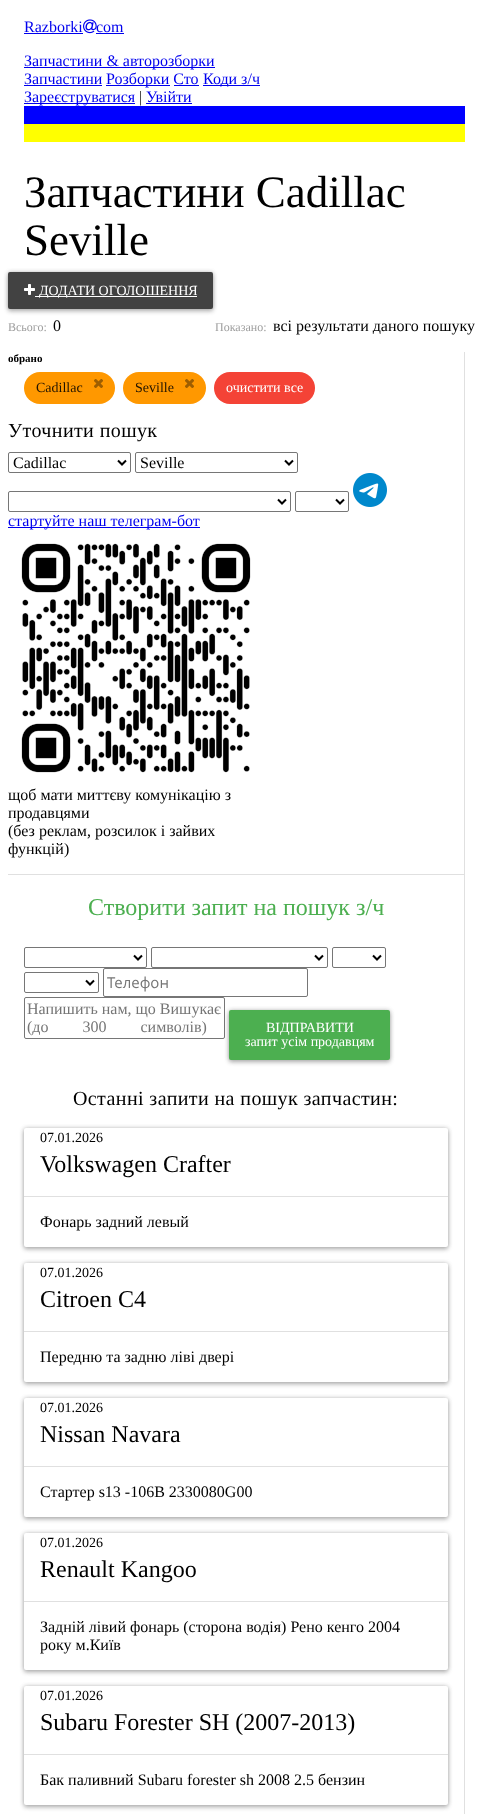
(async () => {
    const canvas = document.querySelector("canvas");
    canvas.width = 489;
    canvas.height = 1814;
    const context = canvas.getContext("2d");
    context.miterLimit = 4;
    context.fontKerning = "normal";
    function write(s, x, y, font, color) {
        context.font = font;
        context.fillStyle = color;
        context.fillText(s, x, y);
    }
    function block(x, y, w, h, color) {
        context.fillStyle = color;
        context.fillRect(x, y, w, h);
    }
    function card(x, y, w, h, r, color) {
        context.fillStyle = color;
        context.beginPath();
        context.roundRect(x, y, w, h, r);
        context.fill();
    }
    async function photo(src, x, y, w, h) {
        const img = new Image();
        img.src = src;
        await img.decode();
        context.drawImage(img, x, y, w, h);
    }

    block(0, 0, 489, 1814, "rgb(255, 255, 255)");
    write("Razborki", 24, 32, "16px Liberation Serif", "rgb(0, 0, 238)");
    block(24, 33, 59, 1, "rgb(0, 0, 238)");
    await photo("media/1.png", 83, 19, 14, 15);
    write("com", 96, 32, "16px Liberation Serif", "rgb(0, 0, 238)");
    block(96, 33, 28, 1, "rgb(0, 0, 238)");
    block(24, 67, 191, 1, "rgb(0, 0, 238)");
    write("Запчастини & авторозборки", 24, 66, "16px Liberation Serif", "rgb(0, 0, 238)");
    write("Запчастини", 24, 84, "16px Liberation Serif", "rgb(0, 0, 238)");
    block(24, 85, 78, 1, "rgb(0, 0, 238)");
    block(106, 85, 64, 1, "rgb(0, 0, 238)");
    write("Розборки Сто", 106, 84, "16px Liberation Serif", "rgb(0, 0, 238)");
    block(203, 85, 57, 1, "rgb(0, 0, 238)");
    write("Коди з/ч", 203, 84, "16px Liberation Serif", "rgb(0, 0, 238)");
    block(174, 85, 25, 1, "rgb(0, 0, 238)");
    block(24, 103, 111, 1, "rgb(0, 0, 238)");
    write("Зареєструватися", 24, 102, "16px Liberation Serif", "rgb(0, 0, 238)");
    write("|", 139, 102, "16px Liberation Serif", "rgb(33, 33, 33)");
    write("Увійти", 146, 102, "16px Liberation Serif", "rgb(0, 0, 238)");
    block(146, 103, 46, 1, "rgb(0, 0, 238)");
    block(24, 106, 441, 18, "rgb(0, 0, 255)");
    block(24, 124, 441, 18, "rgb(255, 255, 0)");
    write("Запчастини Cadillac", 24, 207, "45px Liberation Serif", "rgb(0, 0, 0)");
    write("Seville", 24, 255, "45px Liberation Serif", "rgb(0, 0, 0)");
    context.fillStyle = "rgba(0, 0, 0, 0.2)";
    context.filter = "blur(2.5px)";
    context.beginPath();
    context.roundRect(8, 273, 205, 37, 2);
    context.fill();
    context.filter = "none";
    context.fillStyle = "rgba(0, 0, 0, 0.12)";
    context.filter = "blur(2px)";
    context.beginPath();
    context.roundRect(8, 275, 205, 37, 2);
    context.fill();
    context.filter = "none";
    context.fillStyle = "rgba(0, 0, 0, 0.14)";
    context.filter = "blur(2px)";
    context.beginPath();
    context.roundRect(8, 272, 205, 37, 2);
    context.fill();
    context.filter = "none";
    card(8, 272, 205, 37, 2, "rgb(66, 66, 66)");
    await photo("media/2.png", 24, 284, 11, 11);
    block(35, 296, 162, 1, "rgb(255, 255, 255)");
    write("ДОДАТИ ОГОЛОШЕННЯ", 39, 295, "14px Liberation Serif", "rgb(255, 255, 255)");
    write("Всього:", 8, 331, "12px Liberation Serif", "rgb(158, 158, 158)");
    write("0", 53, 331, "16px Liberation Serif", "rgb(0, 0, 0)");
    write("Показано:", 215, 331, "12px Liberation Serif", "rgb(158, 158, 158)");
    write("всі результати даного пошуку", 273, 331, "16px Liberation Serif", "rgb(0, 0, 0)");
    block(464, 352, 1, 1462, "rgb(224, 224, 224)");
    block(8, 874, 456, 1, "rgb(224, 224, 224)");
    write("обрано", 8, 362, "bold 11px Liberation Serif", "rgb(0, 0, 0)");
    card(24, 372, 91, 32, 16, "rgb(255, 152, 0)");
    write("Cadillac", 36, 392, "14px Liberation Serif", "rgb(33, 20, 0)");
    await photo("media/3.png", 94, 379, 9, 9);
    card(123, 372, 83, 32, 16, "rgb(255, 152, 0)");
    write("Seville", 135, 392, "14px Liberation Serif", "rgb(33, 20, 0)");
    await photo("media/3.png", 185, 379, 9, 9);
    card(214, 372, 101, 32, 16, "rgb(244, 67, 54)");
    write("очистити все", 226, 392, "14px Liberation Serif", "rgb(255, 255, 255)");
    context.letterSpacing = "0.4px";
    write("Уточнити пошук", 8, 437, "20px Liberation Serif", "rgb(0, 0, 0)");
    context.beginPath();
    context.roundRect(8.5, 452.5, 122, 20, 1.5);
    context.strokeStyle = "rgb(118, 118, 118)";
    context.stroke();
    context.beginPath();
    context.moveTo(118, 460.5);
    context.lineTo(122, 464.5);
    context.lineTo(126, 460.5);
    context.strokeStyle = "rgb(0, 0, 0)";
    context.lineWidth = 2;
    context.stroke();
    context.letterSpacing = "0px";
    write("Cadillac", 13, 468, "16px Liberation Serif", "rgb(0, 0, 0)");
    context.beginPath();
    context.roundRect(135.5, 452.5, 162, 20, 1.5);
    context.strokeStyle = "rgb(118, 118, 118)";
    context.lineWidth = 1;
    context.stroke();
    context.beginPath();
    context.moveTo(285, 460.5);
    context.lineTo(289, 464.5);
    context.lineTo(293, 460.5);
    context.strokeStyle = "rgb(0, 0, 0)";
    context.lineWidth = 2;
    context.stroke();
    write("Seville", 140, 468, "16px Liberation Serif", "rgb(0, 0, 0)");
    context.beginPath();
    context.roundRect(8.5, 491.5, 282, 20, 1.5);
    context.strokeStyle = "rgb(118, 118, 118)";
    context.lineWidth = 1;
    context.stroke();
    context.beginPath();
    context.moveTo(278, 499.5);
    context.lineTo(282, 503.5);
    context.lineTo(286, 499.5);
    context.strokeStyle = "rgb(0, 0, 0)";
    context.lineWidth = 2;
    context.stroke();
    context.beginPath();
    context.roundRect(295.5, 491.5, 53, 20, 1.5);
    context.strokeStyle = "rgb(118, 118, 118)";
    context.lineWidth = 1;
    context.stroke();
    context.beginPath();
    context.moveTo(336, 499.5);
    context.lineTo(340, 503.5);
    context.lineTo(344, 499.5);
    context.strokeStyle = "rgb(0, 0, 0)";
    context.lineWidth = 2;
    context.stroke();
    await photo("media/4.png", 353, 473, 34, 34);
    block(8, 527, 192, 1, "rgb(0, 0, 238)");
    write("стартуйте наш телеграм-бот", 8, 526, "16px Liberation Serif", "rgb(0, 0, 238)");
    await photo("media/5.png", 21, 543, 230, 230);
    write("щоб мати миттєву комунікацію з", 8, 800, "16px Liberation Serif", "rgb(0, 0, 0)");
    write("продавцями", 8, 818, "16px Liberation Serif", "rgb(0, 0, 0)");
    write("(без реклам, розсилок і зайвих", 8, 836, "16px Liberation Serif", "rgb(0, 0, 0)");
    write("функцій)", 8, 854, "16px Liberation Serif", "rgb(0, 0, 0)");
    write("Створити запит на пошук з/ч", 88, 915, "24px Liberation Serif", "rgb(76, 175, 80)");
    context.beginPath();
    context.roundRect(24.5, 947.5, 122, 20, 1.5);
    context.strokeStyle = "rgb(118, 118, 118)";
    context.lineWidth = 1;
    context.stroke();
    context.beginPath();
    context.moveTo(134, 955.5);
    context.lineTo(138, 959.5);
    context.lineTo(142, 955.5);
    context.strokeStyle = "rgb(0, 0, 0)";
    context.lineWidth = 2;
    context.stroke();
    context.beginPath();
    context.roundRect(151.5, 947.5, 176, 20, 1.5);
    context.strokeStyle = "rgb(118, 118, 118)";
    context.lineWidth = 1;
    context.stroke();
    context.beginPath();
    context.moveTo(315, 955.5);
    context.lineTo(319, 959.5);
    context.lineTo(323, 955.5);
    context.strokeStyle = "rgb(0, 0, 0)";
    context.lineWidth = 2;
    context.stroke();
    context.beginPath();
    context.roundRect(332.5, 947.5, 53, 20, 1.5);
    context.strokeStyle = "rgb(118, 118, 118)";
    context.lineWidth = 1;
    context.stroke();
    context.beginPath();
    context.moveTo(373, 955.5);
    context.lineTo(377, 959.5);
    context.lineTo(381, 955.5);
    context.strokeStyle = "rgb(0, 0, 0)";
    context.lineWidth = 2;
    context.stroke();
    context.beginPath();
    context.roundRect(24.5, 972.5, 74, 20, 1.5);
    context.strokeStyle = "rgb(118, 118, 118)";
    context.lineWidth = 1;
    context.stroke();
    context.beginPath();
    context.moveTo(86, 980.5);
    context.lineTo(90, 984.5);
    context.lineTo(94, 980.5);
    context.strokeStyle = "rgb(0, 0, 0)";
    context.lineWidth = 2;
    context.stroke();
    context.beginPath();
    context.roundRect(103.5, 968.5, 204, 28, 1.5);
    context.strokeStyle = "rgb(118, 118, 118)";
    context.lineWidth = 1;
    context.stroke();
    write("Телефон", 107, 988, "15px Open Sans", "rgb(117, 117, 117)");
    context.beginPath();
    context.roundRect(24.5, 997.5, 200, 41, 1.5);
    context.stroke();
    write("Напишить нам, що Вишукає", 27, 1014, "16px Liberation Serif", "rgb(117, 117, 117)");
    context.wordSpacing = "30px";
    write("(до 300 символів)", 27, 1032, "16px Liberation Serif", "rgb(117, 117, 117)");
    context.fillStyle = "rgba(0, 0, 0, 0.2)";
    context.filter = "blur(2.5px)";
    context.beginPath();
    context.roundRect(229, 1011, 161, 50, 2);
    context.fill();
    context.filter = "none";
    context.fillStyle = "rgba(0, 0, 0, 0.12)";
    context.filter = "blur(2px)";
    context.beginPath();
    context.roundRect(229, 1013, 161, 50, 2);
    context.fill();
    context.filter = "none";
    context.fillStyle = "rgba(0, 0, 0, 0.14)";
    context.filter = "blur(2px)";
    context.beginPath();
    context.roundRect(229, 1010, 161, 50, 2);
    context.fill();
    context.filter = "none";
    card(229, 1010, 161, 50, 2, "rgb(76, 175, 80)");
    context.wordSpacing = "0px";
    write("ВІДПРАВИТИ", 266, 1032, "14px Liberation Serif", "rgb(255, 255, 255)");
    write("запит усім продавцям", 245, 1046, "14px Liberation Serif", "rgb(255, 255, 255)");
    context.letterSpacing = "0.4px";
    write("Останні запити на пошук запчастин:", 73, 1105, "20px Liberation Serif", "rgb(0, 0, 0)");
    context.fillStyle = "rgba(0, 0, 0, 0.2)";
    context.filter = "blur(2.5px)";
    context.beginPath();
    context.roundRect(24, 1129, 424, 119, 2);
    context.fill();
    context.filter = "none";
    context.fillStyle = "rgba(0, 0, 0, 0.12)";
    context.filter = "blur(2px)";
    context.beginPath();
    context.roundRect(24, 1131, 424, 119, 2);
    context.fill();
    context.filter = "none";
    context.fillStyle = "rgba(0, 0, 0, 0.14)";
    context.filter = "blur(2px)";
    context.beginPath();
    context.roundRect(24, 1128, 424, 119, 2);
    context.fill();
    context.filter = "none";
    card(24, 1128, 424, 119, 2, "rgb(255, 255, 255)");
    block(24, 1196, 424, 1, "rgb(224, 224, 224)");
    context.letterSpacing = "0px";
    write("07.01.2026", 40, 1142, "14px Liberation Serif", "rgb(0, 0, 0)");
    write("Volkswagen Crafter", 40, 1172, "24px Liberation Serif", "rgb(0, 0, 0)");
    write("Фонарь задний левый", 40, 1227, "16px Liberation Serif", "rgb(0, 0, 0)");
    context.fillStyle = "rgba(0, 0, 0, 0.2)";
    context.filter = "blur(2.5px)";
    context.beginPath();
    context.roundRect(24, 1264, 424, 119, 2);
    context.fill();
    context.filter = "none";
    context.fillStyle = "rgba(0, 0, 0, 0.12)";
    context.filter = "blur(2px)";
    context.beginPath();
    context.roundRect(24, 1266, 424, 119, 2);
    context.fill();
    context.filter = "none";
    context.fillStyle = "rgba(0, 0, 0, 0.14)";
    context.filter = "blur(2px)";
    context.beginPath();
    context.roundRect(24, 1263, 424, 119, 2);
    context.fill();
    context.filter = "none";
    card(24, 1263, 424, 119, 2, "rgb(255, 255, 255)");
    block(24, 1331, 424, 1, "rgb(224, 224, 224)");
    write("07.01.2026", 40, 1277, "14px Liberation Serif", "rgb(0, 0, 0)");
    write("Citroen C4", 40, 1307, "24px Liberation Serif", "rgb(0, 0, 0)");
    write("Передню та задню ліві двері", 40, 1362, "16px Liberation Serif", "rgb(0, 0, 0)");
    context.fillStyle = "rgba(0, 0, 0, 0.2)";
    context.filter = "blur(2.5px)";
    context.beginPath();
    context.roundRect(24, 1399, 424, 119, 2);
    context.fill();
    context.filter = "none";
    context.fillStyle = "rgba(0, 0, 0, 0.12)";
    context.filter = "blur(2px)";
    context.beginPath();
    context.roundRect(24, 1401, 424, 119, 2);
    context.fill();
    context.filter = "none";
    context.fillStyle = "rgba(0, 0, 0, 0.14)";
    context.filter = "blur(2px)";
    context.beginPath();
    context.roundRect(24, 1398, 424, 119, 2);
    context.fill();
    context.filter = "none";
    card(24, 1398, 424, 119, 2, "rgb(255, 255, 255)");
    block(24, 1466, 424, 1, "rgb(224, 224, 224)");
    write("07.01.2026", 40, 1412, "14px Liberation Serif", "rgb(0, 0, 0)");
    write("Nissan Navara", 40, 1442, "24px Liberation Serif", "rgb(0, 0, 0)");
    write("Стартер s13 -106B 2330080G00", 40, 1497, "16px Liberation Serif", "rgb(0, 0, 0)");
    context.fillStyle = "rgba(0, 0, 0, 0.2)";
    context.filter = "blur(2.5px)";
    context.beginPath();
    context.roundRect(24, 1534, 424, 137, 2);
    context.fill();
    context.filter = "none";
    context.fillStyle = "rgba(0, 0, 0, 0.12)";
    context.filter = "blur(2px)";
    context.beginPath();
    context.roundRect(24, 1536, 424, 137, 2);
    context.fill();
    context.filter = "none";
    context.fillStyle = "rgba(0, 0, 0, 0.14)";
    context.filter = "blur(2px)";
    context.beginPath();
    context.roundRect(24, 1533, 424, 137, 2);
    context.fill();
    context.filter = "none";
    card(24, 1533, 424, 137, 2, "rgb(255, 255, 255)");
    block(24, 1601, 424, 1, "rgb(224, 224, 224)");
    write("07.01.2026", 40, 1547, "14px Liberation Serif", "rgb(0, 0, 0)");
    write("Renault Kangoo", 40, 1577, "24px Liberation Serif", "rgb(0, 0, 0)");
    write("Задній лівий фонарь (сторона водія) Рено кенго 2004", 40, 1632, "16px Liberation Serif", "rgb(0, 0, 0)");
    write("року м.Київ", 40, 1650, "16px Liberation Serif", "rgb(0, 0, 0)");
    context.fillStyle = "rgba(0, 0, 0, 0.2)";
    context.filter = "blur(2.5px)";
    context.beginPath();
    context.roundRect(24, 1687, 424, 119, 2);
    context.fill();
    context.filter = "none";
    context.fillStyle = "rgba(0, 0, 0, 0.12)";
    context.filter = "blur(2px)";
    context.beginPath();
    context.roundRect(24, 1689, 424, 119, 2);
    context.fill();
    context.filter = "none";
    context.fillStyle = "rgba(0, 0, 0, 0.14)";
    context.filter = "blur(2px)";
    context.beginPath();
    context.roundRect(24, 1686, 424, 119, 2);
    context.fill();
    context.filter = "none";
    card(24, 1686, 424, 119, 2, "rgb(255, 255, 255)");
    block(24, 1754, 424, 1, "rgb(224, 224, 224)");
    write("07.01.2026", 40, 1700, "14px Liberation Serif", "rgb(0, 0, 0)");
    write("Subaru Forester SH (2007-2013)", 40, 1730, "24px Liberation Serif", "rgb(0, 0, 0)");
    write("Бак паливний Subaru forester sh 2008 2.5 бензин", 40, 1785, "16px Liberation Serif", "rgb(0, 0, 0)");
})();
